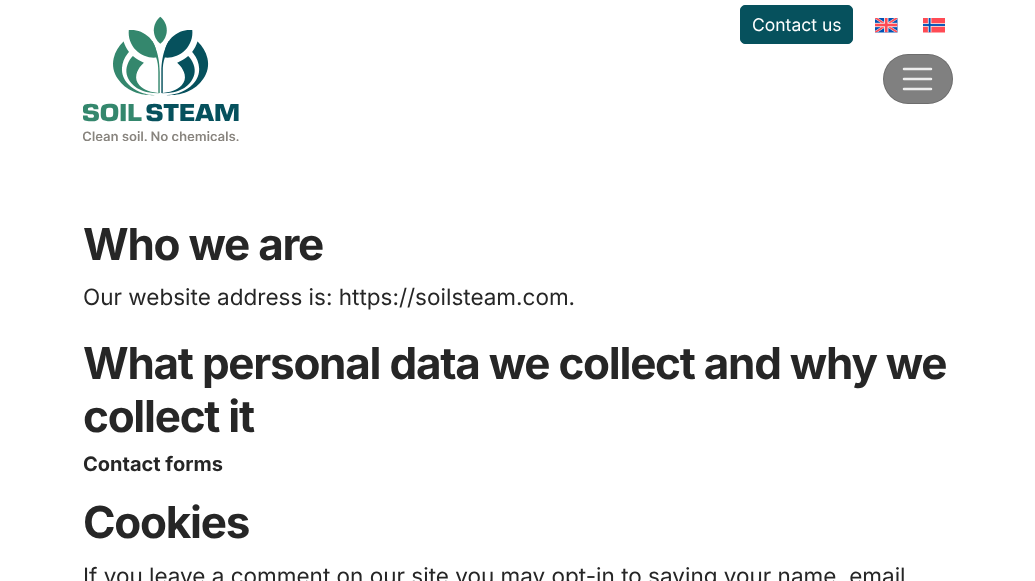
(async () => {
    const canvas = document.querySelector("canvas");
    canvas.width = 1035;
    canvas.height = 581;
    const context = canvas.getContext("2d");
    context.miterLimit = 4;
    context.fontKerning = "normal";
    function write(s, x, y, font, color) {
        context.font = font;
        context.fillStyle = color;
        context.fillText(s, x, y);
    }
    function block(x, y, w, h, color) {
        context.fillStyle = color;
        context.fillRect(x, y, w, h);
    }
    function card(x, y, w, h, r, color) {
        context.fillStyle = color;
        context.beginPath();
        context.roundRect(x, y, w, h, r);
        context.fill();
    }
    async function photo(src, x, y, w, h) {
        const img = new Image();
        img.src = src;
        await img.decode();
        context.drawImage(img, x, y, w, h);
    }

    block(0, 0, 1035, 581, "rgb(255, 255, 255)");
    await photo("media/1.png", 83, 16, 156, 125);
    context.fillStyle = "rgb(6, 81, 93)";
    context.beginPath();
    context.roundRect(740.5, 5.5, 112, 38, 4.5);
    context.fill();
    context.strokeStyle = "rgb(6, 81, 93)";
    context.stroke();
    write("Contact us", 752, 31, "17.5px Inter", "rgb(255, 255, 255)");
    await photo("media/2.png", 875, 18, 23, 15);
    await photo("media/3.png", 923, 18, 22, 15);
    card(883, 54, 70, 50, 25, "rgb(128, 128, 128)");
    context.beginPath();
    context.roundRect(883.5, 54.5, 69, 49, 24.5);
    context.strokeStyle = "rgba(0, 0, 0, 0.15)";
    context.stroke();
    context.beginPath();
    context.moveTo(904, 69);
    context.lineTo(931, 69);
    context.moveTo(904, 79);
    context.lineTo(931, 79);
    context.moveTo(904, 89);
    context.lineTo(931, 89);
    context.strokeStyle = "rgb(238, 238, 238)";
    context.lineWidth = 2.5;
    context.lineCap = "round";
    context.stroke();
    context.letterSpacing = "-1.25px";
    write("Who we are", 83, 260, "bold 44px Inter", "rgb(38, 38, 38)");
    context.letterSpacing = "0px";
    write("Our website address is: https://soilsteam.com.", 83, 305, "22.5px Inter", "rgb(38, 38, 38)");
    context.letterSpacing = "-1.25px";
    write("What personal data we collect and why we", 83, 379, "bold 44px Inter", "rgb(38, 38, 38)");
    write("collect it", 83, 432, "bold 44px Inter", "rgb(38, 38, 38)");
    context.letterSpacing = "0px";
    write("Contact forms", 83, 471, "bold 20px Inter", "rgb(38, 38, 38)");
    context.letterSpacing = "-1.25px";
    write("Cookies", 83, 538, "bold 44px Inter", "rgb(38, 38, 38)");
    context.letterSpacing = "0px";
    write("If you leave a comment on our site you may opt-in to saving your name, email", 83, 584, "22.5px Inter", "rgb(38, 38, 38)");
})();
